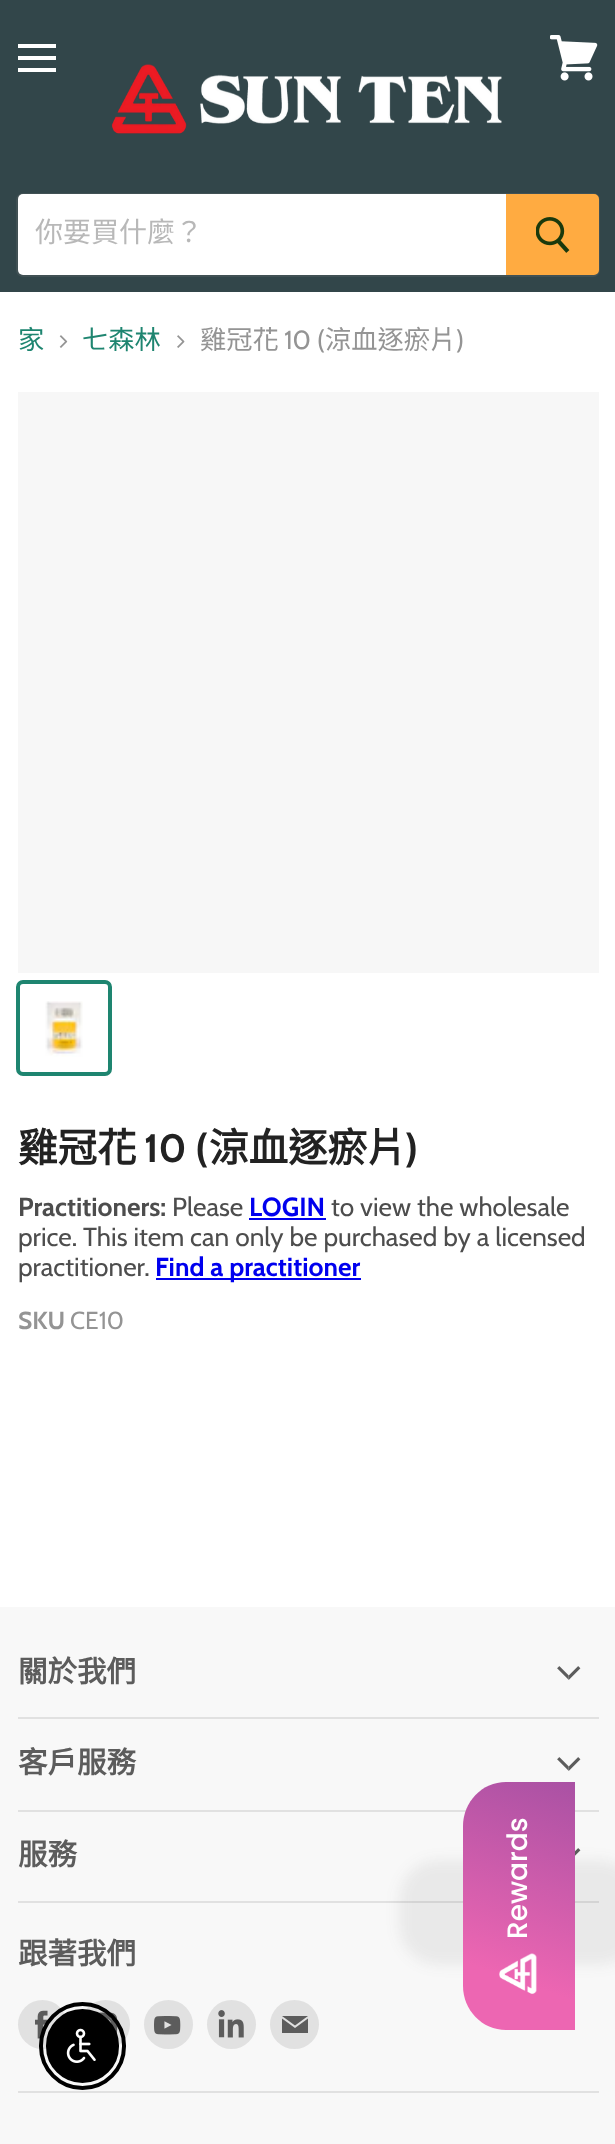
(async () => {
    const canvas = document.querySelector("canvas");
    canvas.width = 615;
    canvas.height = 2144;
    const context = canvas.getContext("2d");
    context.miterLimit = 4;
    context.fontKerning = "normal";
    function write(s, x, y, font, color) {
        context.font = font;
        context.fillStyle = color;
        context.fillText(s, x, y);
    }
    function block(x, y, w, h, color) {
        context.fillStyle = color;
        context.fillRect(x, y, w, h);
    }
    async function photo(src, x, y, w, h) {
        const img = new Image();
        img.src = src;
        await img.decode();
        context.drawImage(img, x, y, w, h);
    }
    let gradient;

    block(0, 0, 615, 2144, "rgb(255, 255, 255)");
    block(0, 0, 615, 292, "rgb(50, 70, 74)");
    block(18, 44, 38, 4, "rgb(255, 255, 255)");
    block(18, 56, 38, 4, "rgb(255, 255, 255)");
    block(18, 68, 38, 4, "rgb(255, 255, 255)");
    await photo("media/1.png", 550, 35, 48, 46);
    await photo("media/2.png", 111, 64, 391, 70);
    context.beginPath();
    context.roundRect(17, 194, 582, 82, 6);
    context.strokeStyle = "rgba(127, 127, 127, 0.2)";
    context.lineWidth = 2;
    context.stroke();
    context.beginPath();
    context.roundRect(18, 194, 488, 81, [5, 0, 0, 5]);
    context.fill();
    write("你要買什麼？", 35, 242, "28px Noto Sans CJK TC", "rgb(184, 184, 184)");
    context.fillStyle = "rgb(255, 171, 65)";
    context.beginPath();
    context.roundRect(507, 195, 91, 79, [0, 4, 4, 0]);
    context.fill();
    context.strokeStyle = "rgb(255, 171, 65)";
    context.stroke();
    await photo("media/3.png", 536, 217, 34, 36);
    write("家", 18, 349, "26.25px Noto Sans CJK TC", "rgb(30, 133, 112)");
    await photo("media/4.png", 59, 335, 9, 13);
    write("七森林", 82, 349, "26.25px Noto Sans CJK TC", "rgb(30, 133, 112)");
    await photo("media/5.png", 177, 335, 8, 13);
    write("雞冠花", 200, 349, "26.25px Noto Sans CJK TC", "rgb(148, 148, 148)");
    write("10 (", 284, 349, "26.25px Cabin", "rgb(148, 148, 148)");
    write("涼血逐瘀片", 325, 349, "26.25px Noto Sans CJK TC", "rgb(148, 148, 148)");
    write(")", 456, 349, "26.25px Cabin", "rgb(148, 148, 148)");
    block(18, 392, 581, 581, "rgb(247, 247, 247)");
    context.beginPath();
    context.roundRect(18, 982, 92, 92, 5);
    context.strokeStyle = "rgb(30, 133, 112)";
    context.lineWidth = 4;
    context.stroke();
    await photo("media/6.png", 45, 1001, 38, 56);
    write("雞冠花", 18, 1162, "bold 39.5px Noto Sans CJK TC", "rgb(34, 34, 34)");
    write("10 (", 144, 1162, "bold 39.5px Cabin", "rgb(34, 34, 34)");
    write("涼血逐瘀片", 209, 1162, "bold 39.5px Noto Sans CJK TC", "rgb(34, 34, 34)");
    write(")", 405, 1162, "bold 39.5px Cabin", "rgb(34, 34, 34)");
    write("Practitioners:", 18, 1216, "bold 26.25px Cabin", "rgb(77, 77, 77)");
    write("Please", 172, 1216, "26.25px Cabin", "rgb(77, 77, 77)");
    write("LOGIN", 249, 1216, "bold 26.25px Cabin", "rgb(0, 0, 238)");
    block(249, 1218, 77, 2, "rgb(0, 0, 238)");
    write("to view the wholesale", 331, 1216, "26.25px Cabin", "rgb(77, 77, 77)");
    write("price. This item can only be purchased by a licensed", 18, 1246, "26.25px Cabin", "rgb(77, 77, 77)");
    write("practitioner.", 18, 1276, "26.25px Cabin", "rgb(77, 77, 77)");
    block(156, 1278, 205, 2, "rgb(0, 0, 238)");
    write("Find a practitioner", 155, 1276, "bold 26.25px Cabin", "rgb(0, 0, 238)");
    write("SKU", 18, 1329, "bold 24.5px Cabin", "rgb(148, 148, 148)");
    write("CE10", 70, 1329, "24.5px Cabin", "rgb(148, 148, 148)");
    block(0, 1607, 615, 537, "rgb(248, 248, 248)");
    block(18, 1717, 581, 2, "rgb(225, 225, 225)");
    write("關於我們", 18, 1682, "bold 29.5px Noto Sans CJK TC", "rgb(92, 92, 92)");
    await photo("media/7.png", 557, 1666, 24, 14);
    block(18, 1810, 581, 2, "rgb(225, 225, 225)");
    write("客戶服務", 18, 1773, "bold 29.5px Noto Sans CJK TC", "rgb(92, 92, 92)");
    await photo("media/7.png", 557, 1757, 24, 14);
    block(18, 1901, 581, 2, "rgb(225, 225, 225)");
    write("服務", 18, 1865, "bold 29.5px Noto Sans CJK TC", "rgb(92, 92, 92)");
    await photo("media/8.png", 575, 1848, 6, 8);
    block(18, 2091, 581, 2, "rgb(225, 225, 225)");
    write("跟著我們", 18, 1964, "bold 29.5px Noto Sans CJK TC", "rgb(92, 92, 92)");
    context.fillStyle = "rgb(225, 225, 225)";
    context.beginPath();
    context.arc(42.5, 2024.5, 24.5, 0, Math.PI * 2);
    context.fill();
    await photo("media/9.png", 35, 2010, 13, 29);
    context.beginPath();
    context.arc(105.5, 2024.5, 24.5, 0, Math.PI * 2);
    context.fill();
    await photo("media/10.png", 97, 2012, 21, 22);
    context.beginPath();
    context.arc(168.5, 2024.5, 24.5, 0, Math.PI * 2);
    context.fill();
    await photo("media/11.png", 154, 2016, 27, 19);
    context.beginPath();
    context.arc(231.5, 2024.5, 24.5, 0, Math.PI * 2);
    context.fill();
    await photo("media/12.png", 218, 2010, 26, 28);
    context.beginPath();
    context.arc(294.5, 2024.5, 24.5, 0, Math.PI * 2);
    context.fill();
    context.fillStyle = "rgb(92, 92, 92)";
    context.beginPath();
    context.moveTo(308, 2016);
    context.lineTo(282, 2016);
    context.lineTo(295, 2025.5);
    context.closePath();
    context.moveTo(295, 2028);
    context.lineTo(282, 2018.5);
    context.lineTo(282, 2033);
    context.lineTo(308, 2033);
    context.lineTo(308, 2018.5);
    context.closePath();
    context.fill("evenodd");
    context.fillStyle = "rgba(68, 68, 68, 0.08)";
    context.filter = "blur(7px)";
    context.beginPath();
    context.roundRect(399, 1860, 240, 105, 40);
    context.fill();
    context.filter = "none";
    gradient = context.createLinearGradient(473, 2034, 600, 1676);
    gradient.addColorStop(0.17, "rgb(237, 102, 178)");
    gradient.addColorStop(1, "rgb(134, 70, 156)");
    context.fillStyle = gradient;
    context.beginPath();
    context.moveTo(463, 1986);
    context.lineTo(463, 1826);
    context.bezierCurveTo(463, 1802, 482, 1782, 506, 1782);
    context.lineTo(575, 1782);
    context.lineTo(575, 2030);
    context.lineTo(506, 2030);
    context.bezierCurveTo(482, 2030, 463, 2010, 463, 1986);
    context.closePath();
    context.fill();
    context.font = "500 28px Poppins";
    context.fillStyle = "rgb(255, 255, 255)";
    context.save();
    context.translate(527, 1939);
    context.rotate(-90 * Math.PI / 180);
    context.fillText("Rewards", 0, 0);
    context.restore();
    await photo("media/13.png", 499, 1953, 38, 41);
    context.beginPath();
    context.roundRect(41, 2004, 83, 84, 41.5);
    context.strokeStyle = "rgb(0, 0, 0)";
    context.stroke();
    context.fillStyle = "rgb(0, 0, 0)";
    context.beginPath();
    context.roundRect(47, 2010, 71, 72, 35.5);
    context.fill();
    context.lineWidth = 2;
    context.stroke();
    await photo("media/14.png", 66, 2028, 30, 35);
})();
